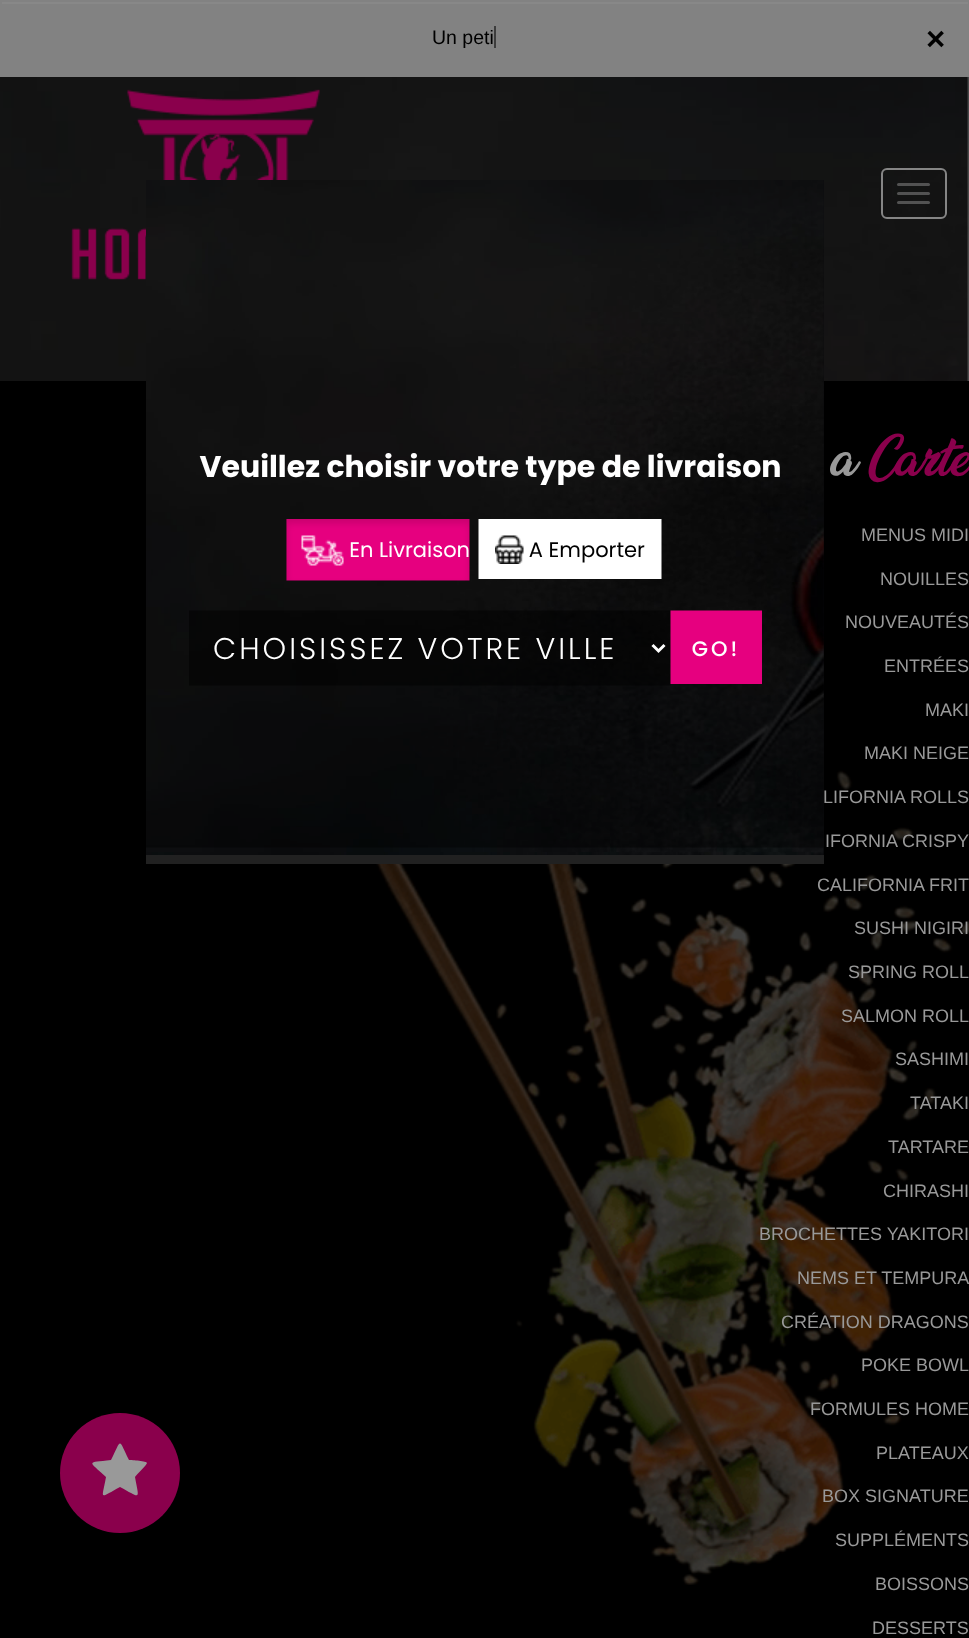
(async () => {
    const canvas = document.querySelector("canvas");
    canvas.width = 969;
    canvas.height = 1638;
    const context = canvas.getContext("2d");
    context.miterLimit = 4;
    context.fontKerning = "normal";
    function write(s, x, y, font, color) {
        context.font = font;
        context.fillStyle = color;
        context.fillText(s, x, y);
    }
    function block(x, y, w, h, color) {
        context.fillStyle = color;
        context.fillRect(x, y, w, h);
    }
    function card(x, y, w, h, r, color) {
        context.fillStyle = color;
        context.beginPath();
        context.roundRect(x, y, w, h, r);
        context.fill();
    }
    async function photo(src, x, y, w, h) {
        const img = new Image();
        img.src = src;
        await img.decode();
        context.drawImage(img, x, y, w, h);
    }

    block(0, 0, 969, 1638, "rgb(255, 255, 255)");
    await photo("media/1.png", 0, 77, 969, 304);
    block(0, 0, 969, 77, "rgb(130, 130, 130)");
    block(2, 2, 966, 2, "rgb(136, 136, 136)");
    write("Un peti", 432, 44, "19.5px Liberation Sans", "rgb(0, 0, 0)");
    block(494, 26, 2, 22, "rgb(61, 61, 61)");
    write("×", 926, 50, "bold 33px Liberation Sans", "rgb(0, 0, 0)");
    block(0, 381, 969, 1257, "rgb(0, 0, 0)");
    await photo("media/4.png", 357, 746, 612, 839);
    block(146, 855, 678, 9, "rgb(33, 33, 33)");
    await photo("media/3.png", 71, 89, 249, 191);
    await photo("media/2.png", 146, 180, 678, 675);
    context.beginPath();
    context.roundRect(882, 169, 64, 49, 5);
    context.strokeStyle = "rgb(133, 133, 133)";
    context.lineWidth = 2;
    context.stroke();
    card(897, 183, 33, 3, 1.5, "rgb(82, 82, 82)");
    card(897, 192, 33, 3, 1.5, "rgb(82, 82, 82)");
    card(897, 201, 33, 3, 1.5, "rgb(82, 82, 82)");
    context.fillStyle = "rgb(138, 0, 76)";
    context.beginPath();
    context.arc(120, 1473, 60, 0, Math.PI * 2);
    context.fill();
    context.fillStyle = "rgb(153, 153, 153)";
    context.beginPath();
    context.moveTo(147, 1463);
    context.bezierCurveTo(147, 1465, 136, 1475, 135, 1477);
    context.bezierCurveTo(139, 1500, 142, 1499, 120, 1487);
    context.bezierCurveTo(98, 1499, 102, 1500, 106, 1477);
    context.bezierCurveTo(88, 1460, 86, 1463, 111, 1460);
    context.bezierCurveTo(122, 1438, 118, 1438, 129, 1460);
    context.bezierCurveTo(132, 1460, 147, 1461, 147, 1463);
    context.closePath();
    context.fill();
    write("a", 830, 476, "bold 45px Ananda", "rgb(153, 153, 153)");
    write("Carte", 866, 476, "bold 45px Ananda", "rgb(138, 0, 76)");
    write("MENUS MIDI", 861, 541, "18px Liberation Sans", "rgb(153, 153, 153)");
    write("NOUILLES", 880, 585, "18px Liberation Sans", "rgb(153, 153, 153)");
    write("NOUVEAUTÉS", 845, 628, "18px Liberation Sans", "rgb(153, 153, 153)");
    write("ENTRÉES", 884, 672, "18px Liberation Sans", "rgb(153, 153, 153)");
    write("MAKI", 925, 716, "18px Liberation Sans", "rgb(153, 153, 153)");
    write("MAKI NEIGE", 864, 759, "18px Liberation Sans", "rgb(153, 153, 153)");
    write("LIFORNIA ROLLS", 823, 803, "18px Liberation Sans", "rgb(153, 153, 153)");
    write("IFORNIA CRISPY", 825, 847, "18px Liberation Sans", "rgb(153, 153, 153)");
    write("CALIFORNIA FRIT", 817, 891, "18px Liberation Sans", "rgb(153, 153, 153)");
    write("SUSHI NIGIRI", 854, 934, "18px Liberation Sans", "rgb(153, 153, 153)");
    write("SPRING ROLL", 848, 978, "18px Liberation Sans", "rgb(153, 153, 153)");
    write("SALMON ROLL", 841, 1022, "18px Liberation Sans", "rgb(153, 153, 153)");
    write("SASHIMI", 895, 1065, "18px Liberation Sans", "rgb(153, 153, 153)");
    write("TATAKI", 910, 1109, "18px Liberation Sans", "rgb(153, 153, 153)");
    write("TARTARE", 888, 1153, "18px Liberation Sans", "rgb(153, 153, 153)");
    write("CHIRASHI", 883, 1197, "18px Liberation Sans", "rgb(153, 153, 153)");
    write("BROCHETTES YAKITORI", 759, 1240, "18px Liberation Sans", "rgb(153, 153, 153)");
    write("NEMS ET TEMPURA", 797, 1284, "18px Liberation Sans", "rgb(153, 153, 153)");
    write("CRÉATION DRAGONS", 781, 1328, "18px Liberation Sans", "rgb(153, 153, 153)");
    write("POKE BOWL", 861, 1371, "18px Liberation Sans", "rgb(153, 153, 153)");
    write("FORMULES HOME", 810, 1415, "18px Liberation Sans", "rgb(153, 153, 153)");
    write("PLATEAUX", 876, 1459, "18px Liberation Sans", "rgb(153, 153, 153)");
    write("BOX SIGNATURE", 822, 1502, "18px Liberation Sans", "rgb(153, 153, 153)");
    write("SUPPLÉMENTS", 835, 1546, "18px Liberation Sans", "rgb(153, 153, 153)");
    write("BOISSONS", 875, 1590, "18px Liberation Sans", "rgb(153, 153, 153)");
    write("DESSERTS", 872, 1634, "18px Liberation Sans", "rgb(153, 153, 153)");
})();
